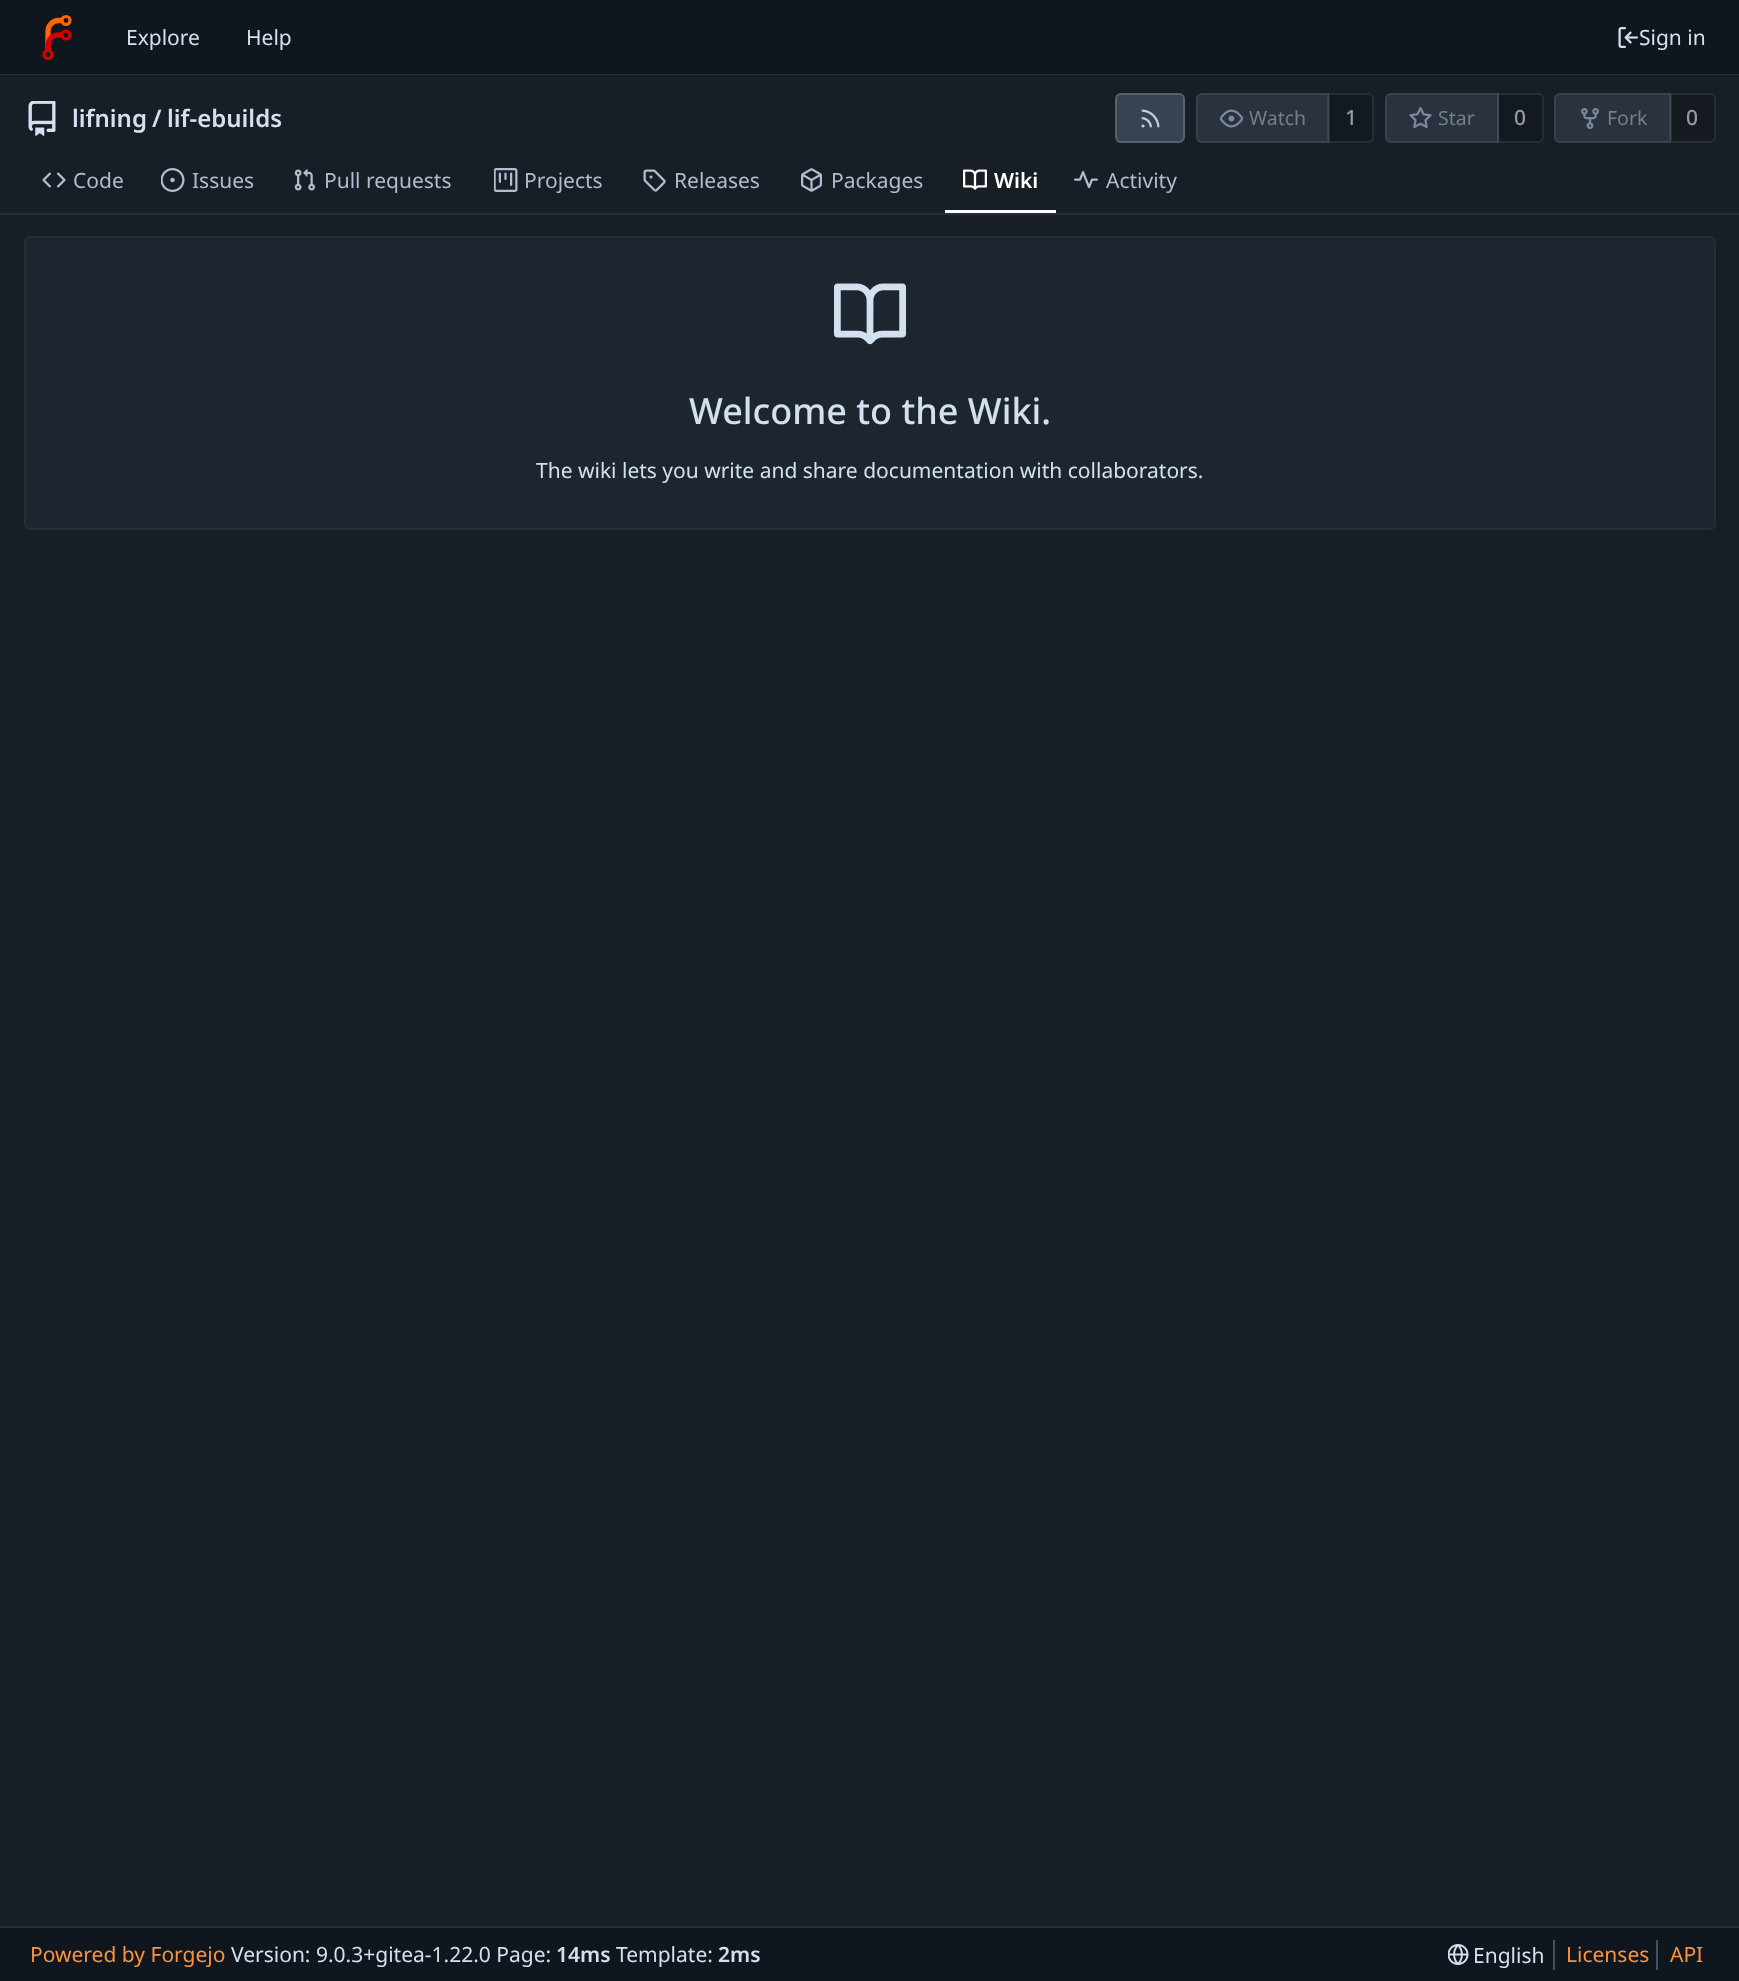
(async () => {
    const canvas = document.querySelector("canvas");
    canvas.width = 1739;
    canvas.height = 1981;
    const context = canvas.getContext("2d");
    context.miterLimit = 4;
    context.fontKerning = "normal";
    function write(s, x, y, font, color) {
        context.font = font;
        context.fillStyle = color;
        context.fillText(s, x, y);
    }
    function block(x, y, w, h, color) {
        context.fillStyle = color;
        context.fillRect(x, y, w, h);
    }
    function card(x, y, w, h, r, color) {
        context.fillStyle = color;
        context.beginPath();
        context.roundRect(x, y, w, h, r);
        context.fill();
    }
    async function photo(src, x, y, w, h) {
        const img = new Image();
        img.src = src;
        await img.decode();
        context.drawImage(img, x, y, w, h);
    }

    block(0, 0, 1739, 1981, "rgb(23, 30, 38)");
    block(0, 0, 1739, 74, "rgb(16, 22, 29)");
    block(0, 74, 1739, 1, "rgb(36, 45, 56)");
    context.beginPath();
    context.moveTo(48, 52);
    context.lineTo(48, 31);
    context.bezierCurveTo(48, 25.5, 53, 20.5, 58.5, 20.5);
    context.lineTo(63, 20.5);
    context.strokeStyle = "rgb(255, 102, 0)";
    context.lineWidth = 5.3;
    context.stroke();
    context.beginPath();
    context.moveTo(48, 52);
    context.bezierCurveTo(48, 45, 47.5, 37, 56.5, 35);
    context.lineTo(63, 35);
    context.strokeStyle = "rgb(212, 0, 0)";
    context.stroke();
    context.beginPath();
    context.arc(66, 20.5, 4, 0, Math.PI * 2);
    context.strokeStyle = "rgb(255, 102, 0)";
    context.lineWidth = 3.2;
    context.stroke();
    context.beginPath();
    context.arc(66, 35, 4, 0, Math.PI * 2);
    context.strokeStyle = "rgb(212, 0, 0)";
    context.stroke();
    context.beginPath();
    context.arc(48, 54.5, 4, 0, Math.PI * 2);
    context.stroke();
    write("Explore", 126, 45, "21px Noto Sans", "rgb(210, 224, 240)");
    write("Help", 246, 45, "21px Noto Sans", "rgb(210, 224, 240)");
    await photo("media/1.png", 1618, 27, 20, 21);
    write("Sign in", 1639, 45, "21px Noto Sans", "rgb(210, 224, 240)");
    await photo("media/2.png", 28, 101, 28, 35);
    write("lifning", 72, 127, "600 24px Noto Sans", "rgb(210, 224, 240)");
    write("/", 152, 127, "600 24px Noto Sans", "rgb(210, 224, 240)");
    write("lif-ebuilds", 167, 127, "600 24px Noto Sans", "rgb(210, 224, 240)");
    card(1115, 93, 70, 50, 6, "rgb(55, 67, 81)");
    context.beginPath();
    context.roundRect(1116, 94, 68, 48, 5);
    context.strokeStyle = "rgba(255, 255, 255, 0.16)";
    context.lineWidth = 2;
    context.stroke();
    await photo("media/3.png", 1141, 109, 19, 19);
    context.fillStyle = "rgb(41, 50, 62)";
    context.beginPath();
    context.roundRect(1196, 93, 133, 50, [6, 0, 0, 6]);
    context.fill();
    context.beginPath();
    context.roundRect(1197, 94, 131, 48, [5, 0, 0, 5]);
    context.strokeStyle = "rgba(151, 154, 157, 0.16)";
    context.stroke();
    await photo("media/4.png", 1220, 109, 24, 19);
    write("Watch", 1249, 125, "19.5px Noto Sans", "rgb(116, 127, 140)");
    context.fillStyle = "rgba(0, 0, 0, 0.14)";
    context.beginPath();
    context.roundRect(1328, 93, 46, 50, [0, 6, 6, 0]);
    context.fill();
    context.beginPath();
    context.roundRect(1329, 94, 44, 48, [0, 5, 5, 0]);
    context.strokeStyle = "rgba(255, 255, 255, 0.09)";
    context.stroke();
    write("1", 1345, 125, "500 21px Noto Sans", "rgb(151, 154, 157)");
    context.fillStyle = "rgb(41, 50, 62)";
    context.beginPath();
    context.roundRect(1385, 93, 114, 50, [6, 0, 0, 6]);
    context.fill();
    context.beginPath();
    context.roundRect(1386, 94, 112, 48, [5, 0, 0, 5]);
    context.strokeStyle = "rgba(151, 154, 157, 0.16)";
    context.stroke();
    await photo("media/5.png", 1409, 107, 23, 22);
    write("Star", 1438, 125, "19.5px Noto Sans", "rgb(116, 127, 140)");
    context.fillStyle = "rgba(0, 0, 0, 0.14)";
    context.beginPath();
    context.roundRect(1497, 93, 47, 50, [0, 6, 6, 0]);
    context.fill();
    context.beginPath();
    context.roundRect(1498, 94, 45, 48, [0, 5, 5, 0]);
    context.strokeStyle = "rgba(255, 255, 255, 0.09)";
    context.stroke();
    write("0", 1514, 125, "500 21px Noto Sans", "rgb(151, 154, 157)");
    context.fillStyle = "rgb(41, 50, 62)";
    context.beginPath();
    context.roundRect(1554, 93, 117, 50, [6, 0, 0, 6]);
    context.fill();
    context.beginPath();
    context.roundRect(1555, 94, 115, 48, [5, 0, 0, 5]);
    context.strokeStyle = "rgba(151, 154, 157, 0.16)";
    context.stroke();
    await photo("media/6.png", 1581, 108, 18, 21);
    write("Fork", 1607, 125, "19.5px Noto Sans", "rgb(116, 127, 140)");
    context.fillStyle = "rgba(10, 14, 17, 0.25)";
    context.beginPath();
    context.roundRect(1670, 93, 46, 50, [0, 6, 6, 0]);
    context.fill();
    context.beginPath();
    context.roundRect(1671, 94, 44, 48, [0, 5, 5, 0]);
    context.stroke();
    write("0", 1686, 125, "500 21px Noto Sans", "rgb(151, 154, 157)");
    await photo("media/7.png", 42, 172, 24, 16);
    write("Code", 73, 188, "21px Noto Sans", "rgb(174, 190, 208)");
    await photo("media/8.png", 161, 168, 24, 24);
    write("Issues", 192, 188, "21px Noto Sans", "rgb(174, 190, 208)");
    await photo("media/9.png", 294, 169, 21, 22);
    write("Pull requests", 324, 188, "21px Noto Sans", "rgb(174, 190, 208)");
    await photo("media/10.png", 494, 168, 24, 24);
    write("Projects", 524, 188, "21px Noto Sans", "rgb(174, 190, 208)");
    await photo("media/11.png", 643, 169, 23, 23);
    write("Releases", 674, 188, "21px Noto Sans", "rgb(174, 190, 208)");
    await photo("media/12.png", 801, 168, 21, 24);
    write("Packages", 831, 188, "21px Noto Sans", "rgb(174, 190, 208)");
    block(945, 210, 111, 3, "rgb(255, 255, 255)");
    await photo("media/13.png", 963, 169, 24, 21);
    write("Wiki", 994, 188, "600 21px Noto Sans", "rgb(255, 255, 255)");
    await photo("media/14.png", 1074, 171, 24, 18);
    write("Activity", 1106, 188, "21px Noto Sans", "rgb(174, 190, 208)");
    block(0, 213, 1739, 2, "rgb(36, 45, 56)");
    context.fillStyle = "rgb(29, 38, 47)";
    context.beginPath();
    context.roundRect(25, 237, 1690, 292, 5);
    context.fill();
    context.strokeStyle = "rgb(36, 45, 56)";
    context.stroke();
    await photo("media/15.png", 834, 283, 72, 62);
    write("Welcome to the Wiki.", 689, 424, "500 36px Noto Sans", "rgb(210, 224, 240)");
    write("The wiki lets you write and share documentation with collaborators.", 536, 478, "21px Noto Sans", "rgb(210, 224, 240)");
    block(0, 1928, 1739, 53, "rgb(16, 22, 29)");
    block(0, 1926, 1739, 2, "rgb(36, 45, 56)");
    write("Powered by Forgejo", 30, 1962, "21px Noto Sans", "rgb(251, 146, 60)");
    write("Version: 9.0.3+gitea-1.22.0 Page:", 231, 1962, "21px Noto Sans", "rgb(210, 224, 240)");
    write("14ms", 556, 1962, "600 21px Noto Sans", "rgb(210, 224, 240)");
    write("Template:", 616, 1962, "21px Noto Sans", "rgb(210, 224, 240)");
    write("2ms", 718, 1962, "600 21px Noto Sans", "rgb(210, 224, 240)");
    await photo("media/16.png", 1448, 1944, 21, 21);
    write("English", 1473, 1963, "21px Noto Sans", "rgb(210, 224, 240)");
    block(1553, 1940, 2, 30, "rgb(68, 81, 97)");
    write("Licenses", 1566, 1962, "21px Noto Sans", "rgb(251, 146, 60)");
    block(1656, 1940, 2, 30, "rgb(68, 81, 97)");
    write("API", 1670, 1962, "21px Noto Sans", "rgb(251, 146, 60)");
})();
